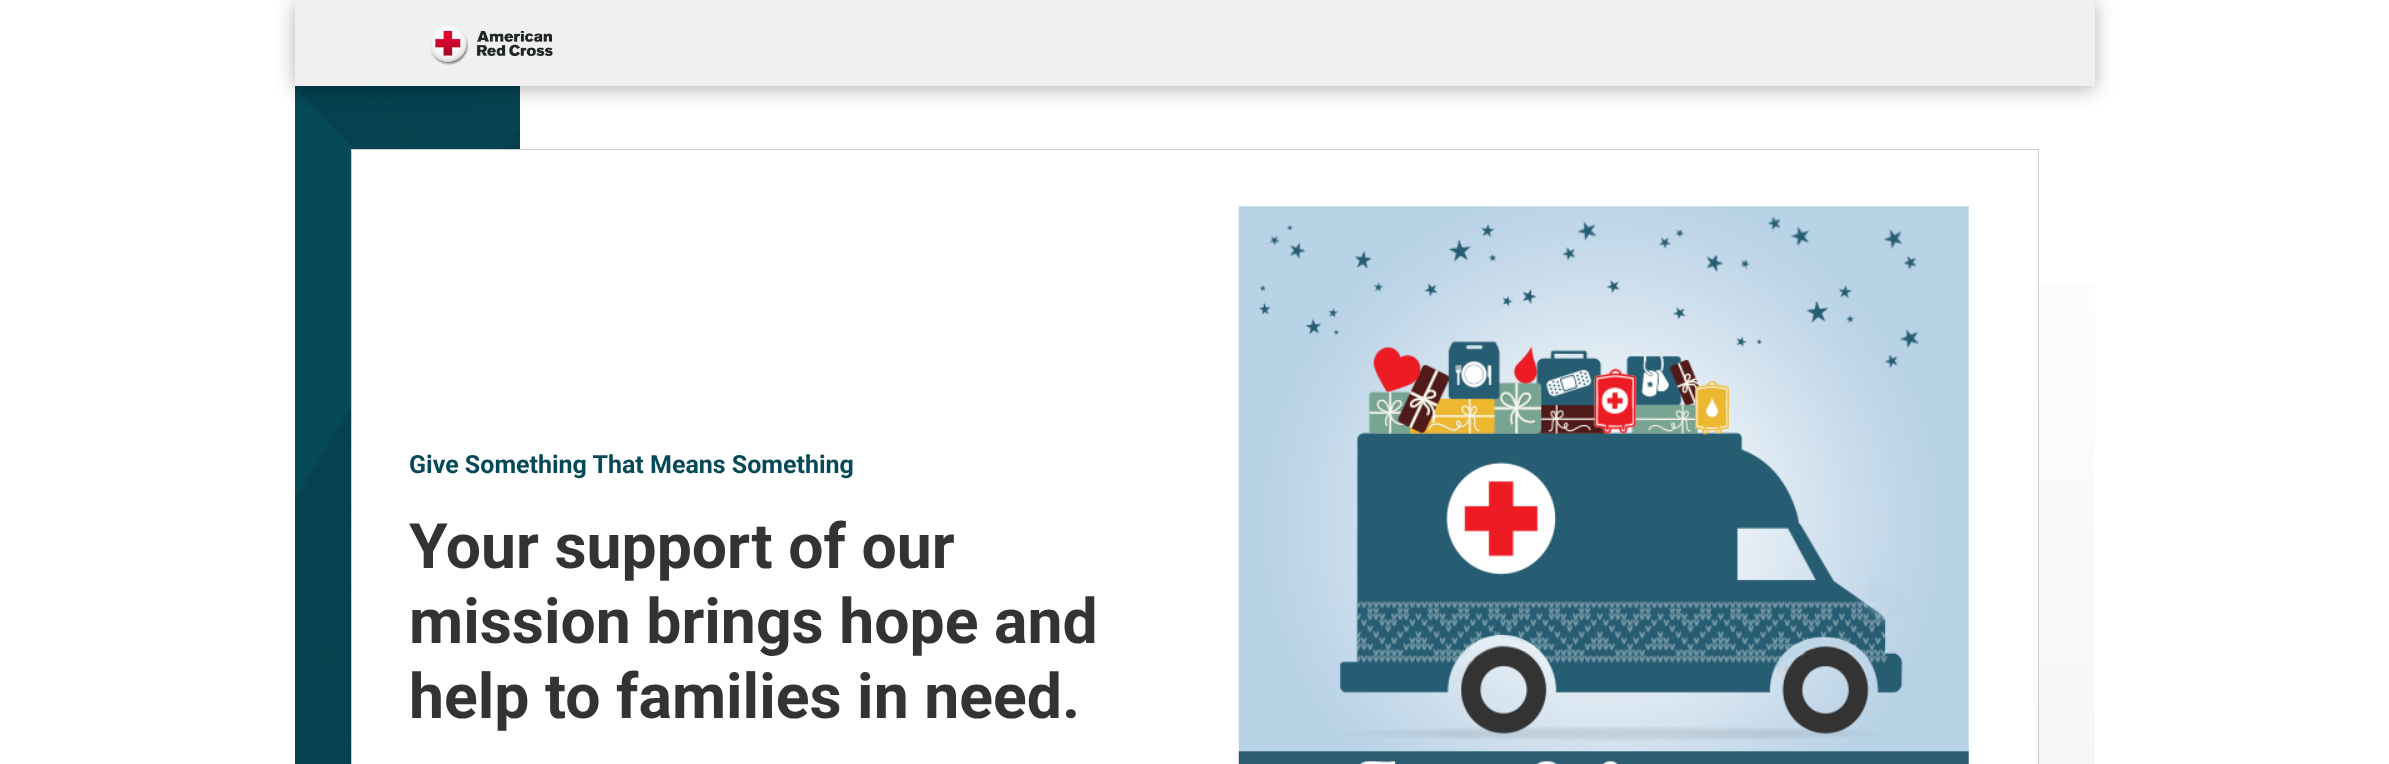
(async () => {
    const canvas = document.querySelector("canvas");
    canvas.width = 2389;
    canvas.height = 764;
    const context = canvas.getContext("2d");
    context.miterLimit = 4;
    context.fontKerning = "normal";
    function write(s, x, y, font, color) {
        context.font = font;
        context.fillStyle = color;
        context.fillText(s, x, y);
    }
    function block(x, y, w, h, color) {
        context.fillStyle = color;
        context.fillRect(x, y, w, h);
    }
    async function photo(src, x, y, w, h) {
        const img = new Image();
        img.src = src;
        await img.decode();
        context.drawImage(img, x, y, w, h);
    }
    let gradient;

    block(0, 0, 2389, 764, "rgb(255, 255, 255)");
    block(295, 86, 225, 678, "rgb(6, 73, 89)");
    await photo("media/2.png", 295, 86, 225, 678);
    context.fillStyle = "rgba(0, 0, 0, 0.3)";
    context.filter = "blur(9.5px)";
    context.beginPath();
    context.rect(295, 3, 1800, 86);
    context.fill();
    context.filter = "none";
    block(295, 0, 1800, 86, "rgb(240, 240, 240)");
    await photo("media/1.png", 429, 26, 124, 39);
    gradient = context.createLinearGradient(1195, 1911, 1195, 86);
    gradient.addColorStop(0, "rgb(232, 232, 232)");
    gradient.addColorStop(1, "rgb(255, 255, 255)");
    context.fillStyle = gradient;
    context.fillRect(520, 284, 1575, 480);
    block(352, 150, 1686, 614, "rgb(255, 255, 255)");
    block(351, 149, 1688, 1, "rgb(204, 204, 204)");
    block(2038, 149, 1, 615, "rgb(204, 204, 204)");
    block(351, 149, 1, 615, "rgb(204, 204, 204)");
    write("Give Something That Means Something", 409, 473, "bold 25px Roboto", "rgb(6, 73, 89)");
    write("Your support of our", 409, 568, "bold 62.5px Roboto", "rgb(51, 51, 51)");
    write("mission brings hope and", 409, 643, "bold 62.5px Roboto", "rgb(51, 51, 51)");
    write("help to families in need.", 409, 718, "bold 62.5px Roboto", "rgb(51, 51, 51)");
    await photo("media/3.png", 1238, 206, 731, 558);
})();
